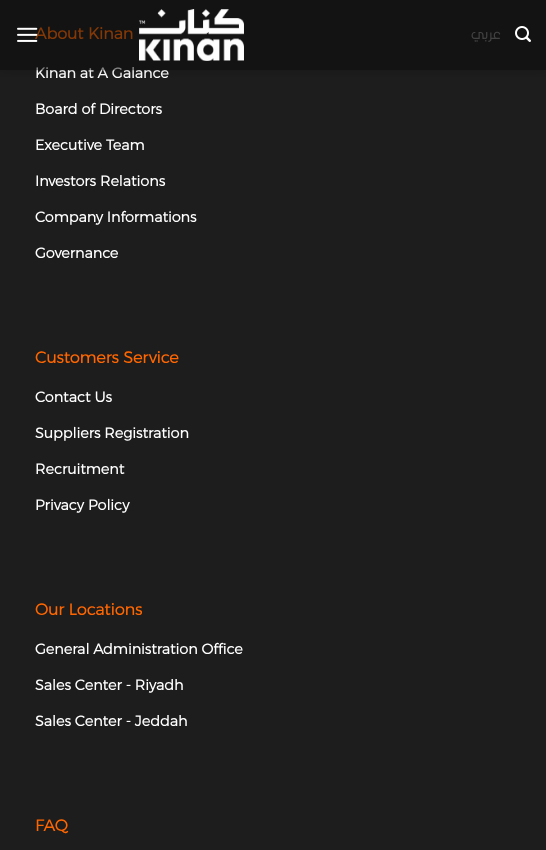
(async () => {
    const canvas = document.querySelector("canvas");
    canvas.width = 546;
    canvas.height = 850;
    const context = canvas.getContext("2d");
    context.miterLimit = 4;
    context.fontKerning = "normal";
    function write(s, x, y, font, color) {
        context.font = font;
        context.fillStyle = color;
        context.fillText(s, x, y);
    }
    function block(x, y, w, h, color) {
        context.fillStyle = color;
        context.fillRect(x, y, w, h);
    }
    async function photo(src, x, y, w, h) {
        const img = new Image();
        img.src = src;
        await img.decode();
        context.drawImage(img, x, y, w, h);
    }

    block(0, 0, 546, 850, "rgb(29, 29, 29)");
    write("About Kinan", 35, 39, "bold 16px Montserrat", "rgb(255, 102, 0)");
    write("Kinan at A Galance", 35, 78, "bold 14.4px Montserrat", "rgb(255, 255, 255)");
    write("Board of Directors", 35, 114, "bold 14.4px Montserrat", "rgb(255, 255, 255)");
    write("Executive Team", 35, 150, "bold 14.4px Montserrat", "rgb(255, 255, 255)");
    write("Investors Relations", 35, 186, "bold 14.4px Montserrat", "rgb(255, 255, 255)");
    write("Company Informations", 35, 222, "bold 14.4px Montserrat", "rgb(255, 255, 255)");
    write("Governance", 35, 258, "bold 14.4px Montserrat", "rgb(255, 255, 255)");
    write("Customers Service", 35, 363, "bold 16px Montserrat", "rgb(255, 102, 0)");
    write("Contact Us", 35, 402, "bold 14.4px Montserrat", "rgb(255, 255, 255)");
    write("Suppliers Registration", 35, 438, "bold 14.4px Montserrat", "rgb(255, 255, 255)");
    write("Recruitment", 35, 474, "bold 14.4px Montserrat", "rgb(255, 255, 255)");
    write("Privacy Policy", 35, 510, "bold 14.4px Montserrat", "rgb(255, 255, 255)");
    write("Our Locations", 35, 615, "bold 16px Montserrat", "rgb(255, 102, 0)");
    write("General Administration Office", 35, 654, "bold 14.4px Montserrat", "rgb(255, 255, 255)");
    write("Sales Center - Riyadh", 35, 690, "bold 14.4px Montserrat", "rgb(255, 255, 255)");
    write("Sales Center - Jeddah", 35, 726, "bold 14.4px Montserrat", "rgb(255, 255, 255)");
    write("FAQ", 35, 831, "bold 16px Montserrat", "rgb(255, 102, 0)");
    context.save();
    context.beginPath();
    context.rect(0, 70, 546, 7);
    context.clip();
    context.fillStyle = "rgba(0, 0, 0, 0.15)";
    context.filter = "blur(5px)";
    context.beginPath();
    context.rect(1, 1, 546, 70);
    context.fill();
    context.filter = "none";
    context.restore();
    block(0, 0, 546, 70, "rgba(10, 10, 10, 0.5)");
    await photo("media/1.png", 17, 27, 21, 15);
    await photo("media/2.png", 139, 9, 105, 52);
    context.direction = "rtl";
    write("عربي", 501, 39, "13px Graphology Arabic", "rgb(66, 66, 66)");
    await photo("media/3.png", 515, 26, 16, 16);
    block(36, 70, 131, 1, "rgba(10, 10, 10, 0.1)");
})();
